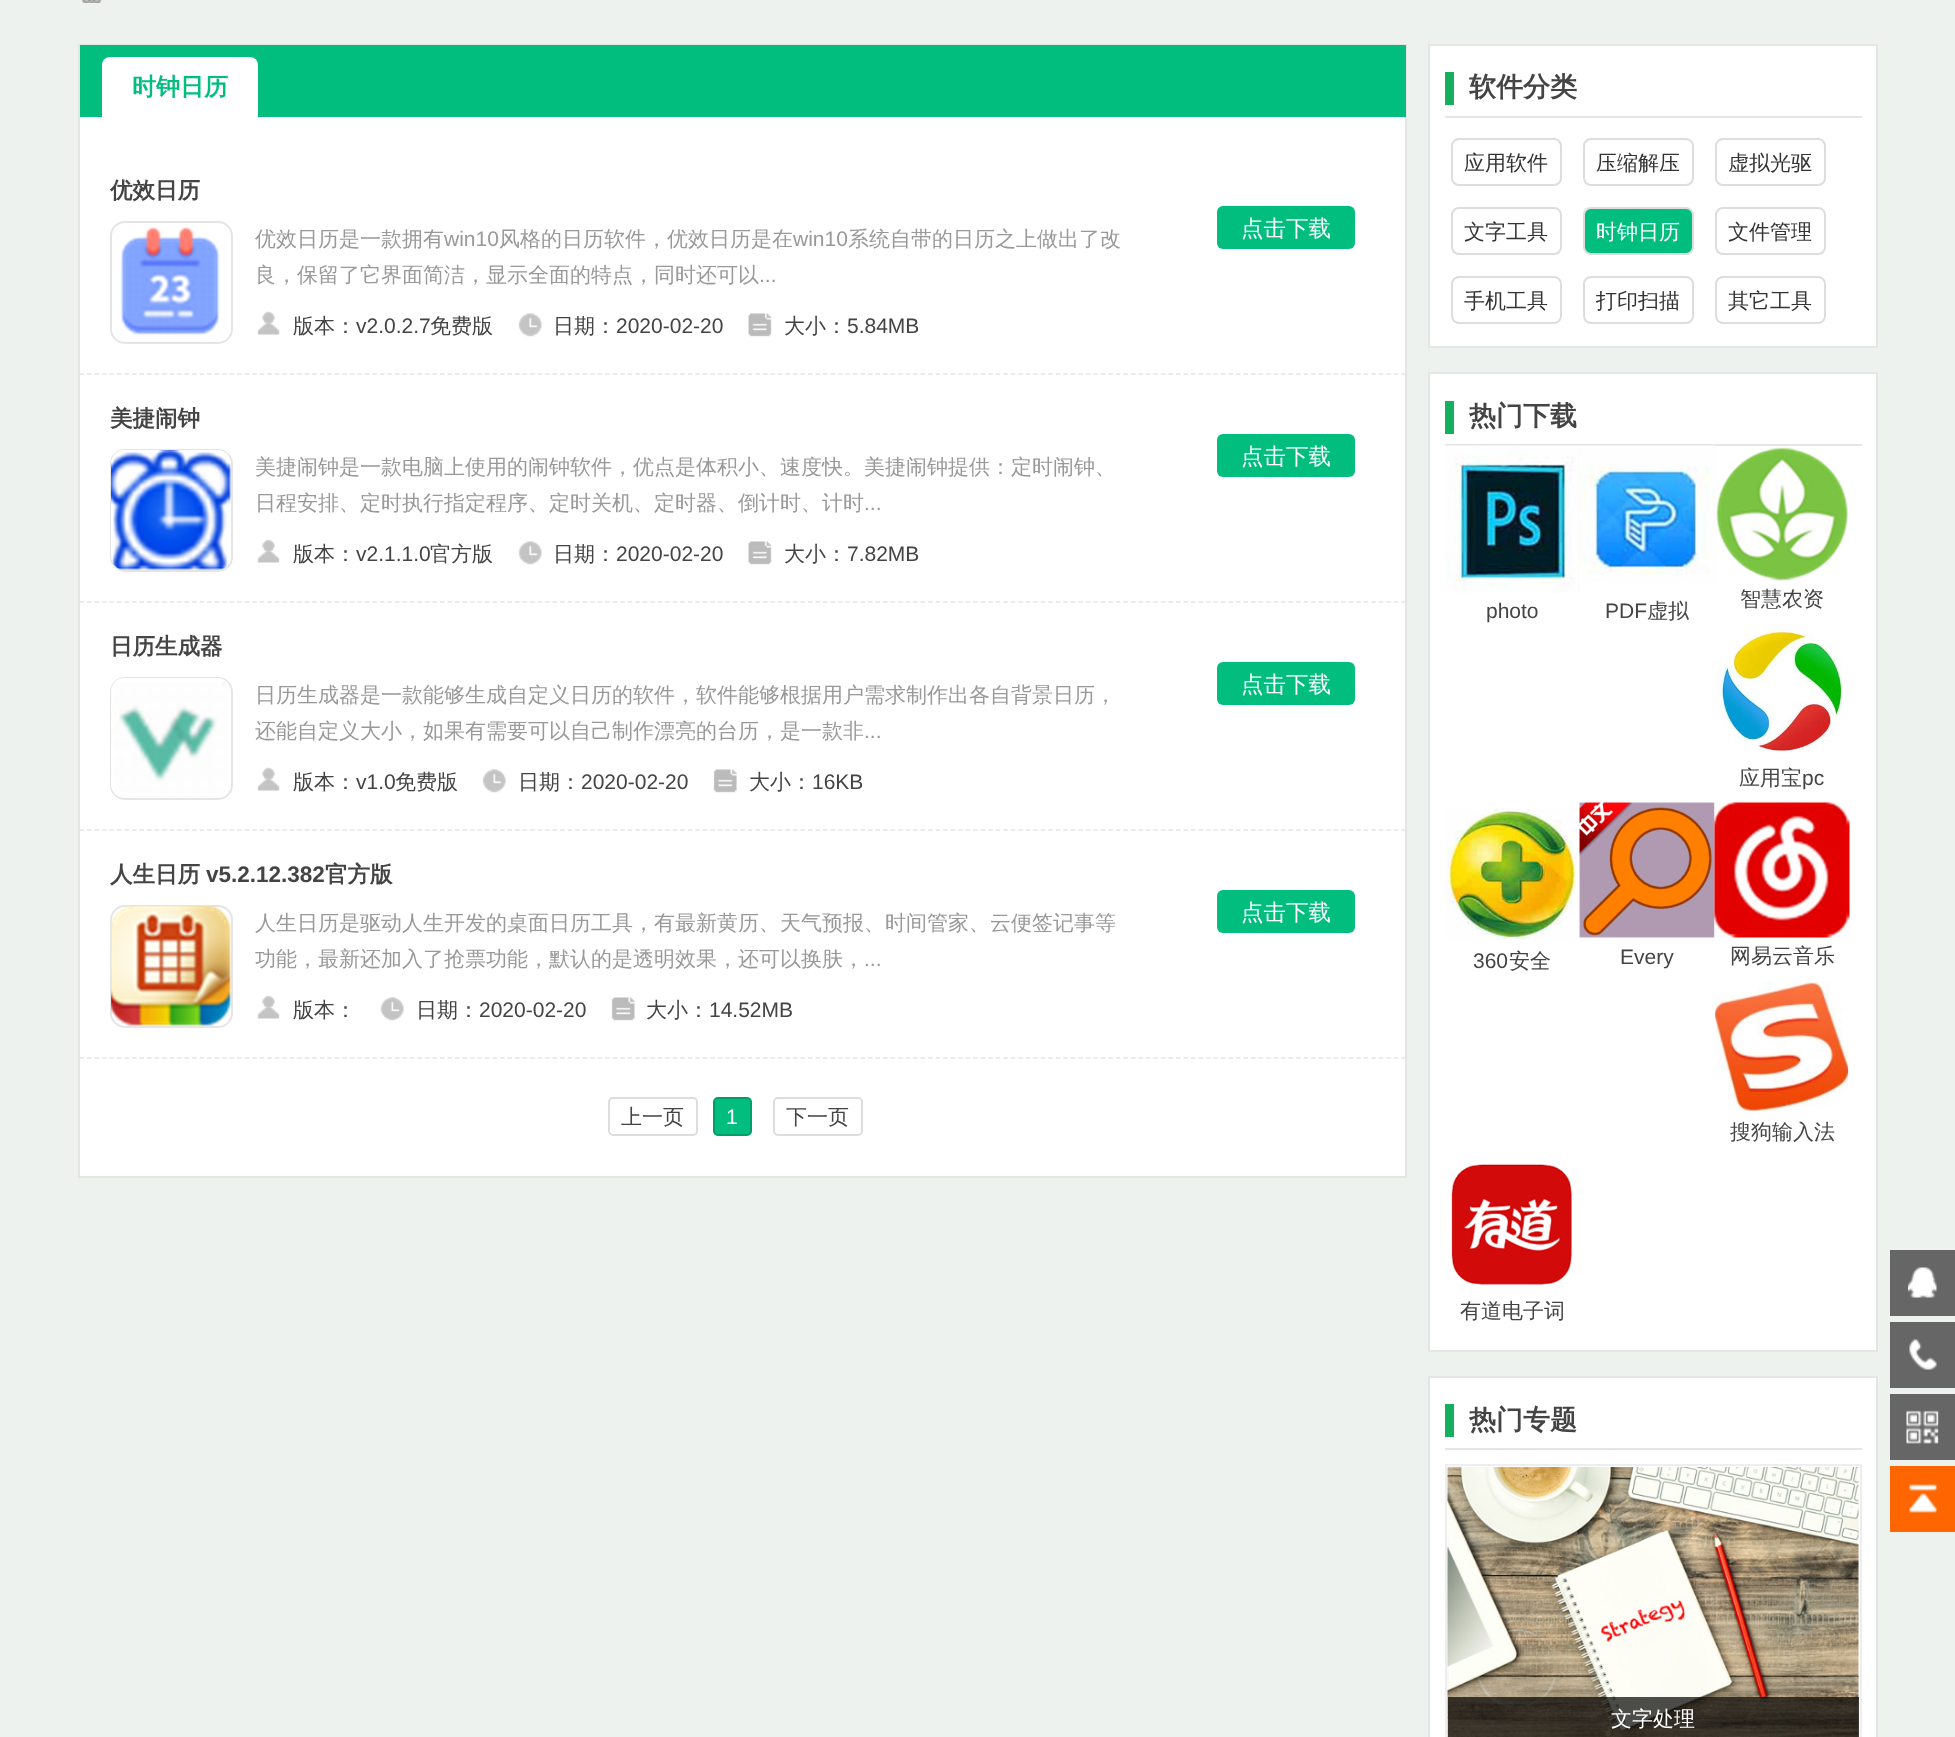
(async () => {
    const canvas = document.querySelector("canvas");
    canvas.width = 1955;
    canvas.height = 1737;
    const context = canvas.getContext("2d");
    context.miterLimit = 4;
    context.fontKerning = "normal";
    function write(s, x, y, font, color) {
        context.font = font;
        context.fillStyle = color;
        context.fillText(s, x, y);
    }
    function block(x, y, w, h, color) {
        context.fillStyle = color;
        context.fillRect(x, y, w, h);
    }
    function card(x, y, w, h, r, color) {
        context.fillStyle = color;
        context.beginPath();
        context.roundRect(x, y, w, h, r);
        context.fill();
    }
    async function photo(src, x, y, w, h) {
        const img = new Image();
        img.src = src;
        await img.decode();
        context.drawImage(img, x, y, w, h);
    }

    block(0, 0, 1955, 1737, "rgb(237, 242, 238)");
    await photo("media/1.png", 81, 0, 21, 3);
    block(80, 117, 1325, 1059, "rgb(255, 255, 255)");
    context.strokeStyle = "rgb(229, 229, 229)";
    context.lineWidth = 2;
    context.strokeRect(79, 45, 1327, 1132);
    block(80, 45, 1326, 72, "rgb(1, 190, 127)");
    context.fillStyle = "rgb(255, 255, 255)";
    context.beginPath();
    context.roundRect(102, 57, 156, 60, [8, 8, 0, 0]);
    context.fill();
    write("时钟日历", 132, 95, "bold 24px WenQuanYi Zen Hei", "rgb(1, 190, 127)");
    context.beginPath();
    context.moveTo(79.5, 374);
    context.lineTo(1405.5, 374);
    context.lineWidth = 1.5;
    context.setLineDash([4.5, 3.01]);
    context.stroke();
    write("优效日历", 110, 198, "bold 22.5px WenQuanYi Zen Hei", "rgb(68, 68, 68)");
    context.beginPath();
    context.roundRect(111, 222, 121, 121, 14);
    context.lineWidth = 2;
    context.setLineDash([]);
    context.stroke();
    await photo("media/2.png", 120, 227, 100, 108);
    write("优效日历是一款拥有", 255, 246, "500 21px WenQuanYi Zen Hei", "rgb(153, 153, 153)");
    write("win10", 444, 246, "21px Liberation Sans", "rgb(153, 153, 153)");
    write("风格的日历软件，优效日历是在", 499, 246, "500 21px WenQuanYi Zen Hei", "rgb(153, 153, 153)");
    write("win10", 793, 246, "21px Liberation Sans", "rgb(153, 153, 153)");
    write("系统自带的日历之上做出了改", 848, 246, "500 21px WenQuanYi Zen Hei", "rgb(153, 153, 153)");
    write("良，保留了它界面简洁，显示全面的特点，同时还可以", 255, 282, "500 21px WenQuanYi Zen Hei", "rgb(153, 153, 153)");
    write("...", 759, 282, "21px Liberation Sans", "rgb(153, 153, 153)");
    await photo("media/3.png", 257, 311, 23, 24);
    write("版本：", 293, 333, "500 21px WenQuanYi Zen Hei", "rgb(68, 68, 68)");
    write("v2.0.2.7", 356, 333, "21px Liberation Sans", "rgb(68, 68, 68)");
    write("免费版", 430, 333, "500 21px WenQuanYi Zen Hei", "rgb(68, 68, 68)");
    await photo("media/4.png", 518, 313, 24, 24);
    write("日期：", 553, 333, "500 21px WenQuanYi Zen Hei", "rgb(68, 68, 68)");
    write("2020-02-20", 616, 333, "21px Liberation Sans", "rgb(68, 68, 68)");
    await photo("media/5.png", 748, 313, 24, 24);
    write("大小：", 784, 333, "500 21px WenQuanYi Zen Hei", "rgb(68, 68, 68)");
    write("5.84MB", 847, 333, "21px Liberation Sans", "rgb(68, 68, 68)");
    card(1217, 206, 138, 43, 6, "rgb(1, 190, 127)");
    write("点击下载", 1241, 236, "500 22.5px WenQuanYi Zen Hei", "rgb(255, 255, 255)");
    context.beginPath();
    context.moveTo(79.5, 602);
    context.lineTo(1405.5, 602);
    context.lineWidth = 1.5;
    context.setLineDash([4.5, 3.01]);
    context.stroke();
    write("美捷闹钟", 110, 426, "bold 22.5px WenQuanYi Zen Hei", "rgb(68, 68, 68)");
    context.beginPath();
    context.roundRect(111, 450, 121, 121, 14);
    context.lineWidth = 2;
    context.setLineDash([]);
    context.stroke();
    await photo("media/6.png", 111, 450, 120, 120);
    write("美捷闹钟是一款电脑上使用的闹钟软件，优点是体积小、速度快。美捷闹钟提供：定时闹钟、", 255, 474, "500 21px WenQuanYi Zen Hei", "rgb(153, 153, 153)");
    write("日程安排、定时执行指定程序、定时关机、定时器、倒计时、计时", 255, 510, "500 21px WenQuanYi Zen Hei", "rgb(153, 153, 153)");
    write("...", 864, 510, "21px Liberation Sans", "rgb(153, 153, 153)");
    await photo("media/3.png", 257, 539, 23, 24);
    write("版本：", 293, 561, "500 21px WenQuanYi Zen Hei", "rgb(68, 68, 68)");
    write("v2.1.1.0", 356, 561, "21px Liberation Sans", "rgb(68, 68, 68)");
    write("官方版", 430, 561, "500 21px WenQuanYi Zen Hei", "rgb(68, 68, 68)");
    await photo("media/4.png", 518, 541, 24, 24);
    write("日期：", 553, 561, "500 21px WenQuanYi Zen Hei", "rgb(68, 68, 68)");
    write("2020-02-20", 616, 561, "21px Liberation Sans", "rgb(68, 68, 68)");
    await photo("media/5.png", 748, 541, 24, 24);
    write("大小：", 784, 561, "500 21px WenQuanYi Zen Hei", "rgb(68, 68, 68)");
    write("7.82MB", 847, 561, "21px Liberation Sans", "rgb(68, 68, 68)");
    card(1217, 434, 138, 43, 6, "rgb(1, 190, 127)");
    write("点击下载", 1241, 464, "500 22.5px WenQuanYi Zen Hei", "rgb(255, 255, 255)");
    context.beginPath();
    context.moveTo(79.5, 830);
    context.lineTo(1405.5, 830);
    context.lineWidth = 1.5;
    context.setLineDash([4.5, 3.01]);
    context.stroke();
    write("日历生成器", 110, 654, "bold 22.5px WenQuanYi Zen Hei", "rgb(68, 68, 68)");
    context.beginPath();
    context.roundRect(111, 678, 121, 121, 14);
    context.lineWidth = 2;
    context.setLineDash([]);
    context.stroke();
    await photo("media/7.png", 111, 678, 119, 119);
    write("日历生成器是一款能够生成自定义日历的软件，软件能够根据用户需求制作出各自背景日历，", 255, 702, "500 21px WenQuanYi Zen Hei", "rgb(153, 153, 153)");
    write("还能自定义大小，如果有需要可以自己制作漂亮的台历，是一款非", 255, 738, "500 21px WenQuanYi Zen Hei", "rgb(153, 153, 153)");
    write("...", 864, 738, "21px Liberation Sans", "rgb(153, 153, 153)");
    await photo("media/3.png", 257, 767, 23, 24);
    write("版本：", 293, 789, "500 21px WenQuanYi Zen Hei", "rgb(68, 68, 68)");
    write("v1.0", 356, 789, "21px Liberation Sans", "rgb(68, 68, 68)");
    write("免费版", 395, 789, "500 21px WenQuanYi Zen Hei", "rgb(68, 68, 68)");
    await photo("media/8.png", 482, 769, 24, 24);
    write("日期：", 518, 789, "500 21px WenQuanYi Zen Hei", "rgb(68, 68, 68)");
    write("2020-02-20", 581, 789, "21px Liberation Sans", "rgb(68, 68, 68)");
    await photo("media/9.png", 713, 769, 24, 24);
    write("大小：", 749, 789, "500 21px WenQuanYi Zen Hei", "rgb(68, 68, 68)");
    write("16KB", 812, 789, "21px Liberation Sans", "rgb(68, 68, 68)");
    card(1217, 662, 138, 43, 6, "rgb(1, 190, 127)");
    write("点击下载", 1241, 692, "500 22.5px WenQuanYi Zen Hei", "rgb(255, 255, 255)");
    context.beginPath();
    context.moveTo(79.5, 1058);
    context.lineTo(1405.5, 1058);
    context.lineWidth = 1.5;
    context.setLineDash([4.5, 3.01]);
    context.stroke();
    write("人生日历", 110, 882, "bold 22.5px WenQuanYi Zen Hei", "rgb(68, 68, 68)");
    write("v5.2.12.382", 206, 882, "bold 22.5px Liberation Sans", "rgb(68, 68, 68)");
    write("官方版", 325, 882, "bold 22.5px WenQuanYi Zen Hei", "rgb(68, 68, 68)");
    context.beginPath();
    context.roundRect(111, 906, 121, 121, 14);
    context.lineWidth = 2;
    context.setLineDash([]);
    context.stroke();
    await photo("media/10.png", 111, 906, 120, 120);
    write("人生日历是驱动人生开发的桌面日历工具，有最新黄历、天气预报、时间管家、云便签记事等", 255, 930, "500 21px WenQuanYi Zen Hei", "rgb(153, 153, 153)");
    write("功能，最新还加入了抢票功能，默认的是透明效果，还可以换肤，", 255, 966, "500 21px WenQuanYi Zen Hei", "rgb(153, 153, 153)");
    write("...", 864, 966, "21px Liberation Sans", "rgb(153, 153, 153)");
    await photo("media/3.png", 257, 995, 23, 24);
    write("版本：", 293, 1017, "500 21px WenQuanYi Zen Hei", "rgb(68, 68, 68)");
    await photo("media/8.png", 380, 997, 24, 24);
    write("日期：", 416, 1017, "500 21px WenQuanYi Zen Hei", "rgb(68, 68, 68)");
    write("2020-02-20", 479, 1017, "21px Liberation Sans", "rgb(68, 68, 68)");
    await photo("media/11.png", 611, 997, 24, 24);
    write("大小：", 646, 1017, "500 21px WenQuanYi Zen Hei", "rgb(68, 68, 68)");
    write("14.52MB", 709, 1017, "21px Liberation Sans", "rgb(68, 68, 68)");
    card(1217, 890, 138, 43, 6, "rgb(1, 190, 127)");
    write("点击下载", 1241, 920, "500 22.5px WenQuanYi Zen Hei", "rgb(255, 255, 255)");
    context.beginPath();
    context.roundRect(609, 1098, 88, 37, 4);
    context.strokeStyle = "rgb(221, 221, 221)";
    context.stroke();
    write("上一页", 621, 1124, "500 21px WenQuanYi Zen Hei", "rgb(68, 68, 68)");
    context.fillStyle = "rgb(1, 190, 127)";
    context.beginPath();
    context.roundRect(714, 1098, 37, 37, 4);
    context.fill();
    context.strokeStyle = "rgb(0, 157, 109)";
    context.stroke();
    write("1", 726, 1124, "21px Liberation Sans", "rgb(255, 255, 255)");
    context.beginPath();
    context.roundRect(774, 1098, 88, 37, 4);
    context.strokeStyle = "rgb(221, 221, 221)";
    context.stroke();
    write("下一页", 786, 1124, "500 21px WenQuanYi Zen Hei", "rgb(68, 68, 68)");
    context.fillStyle = "rgb(255, 255, 255)";
    context.beginPath();
    context.rect(1429, 45, 448, 302);
    context.fill();
    context.strokeStyle = "rgb(229, 229, 229)";
    context.stroke();
    block(1445, 116, 417, 2, "rgb(229, 229, 229)");
    block(1445, 72, 9, 33, "rgb(22, 174, 95)");
    write("软件分类", 1469, 96, "bold 27px WenQuanYi Zen Hei", "rgb(68, 68, 68)");
    context.beginPath();
    context.roundRect(1452, 139, 109, 46, 7);
    context.strokeStyle = "rgb(221, 221, 221)";
    context.stroke();
    write("应用软件", 1464, 170, "500 21px WenQuanYi Zen Hei", "rgb(51, 51, 51)");
    context.beginPath();
    context.roundRect(1584, 139, 109, 46, 7);
    context.stroke();
    write("压缩解压", 1596, 170, "500 21px WenQuanYi Zen Hei", "rgb(51, 51, 51)");
    context.beginPath();
    context.roundRect(1716, 139, 109, 46, 7);
    context.stroke();
    write("虚拟光驱", 1728, 170, "500 21px WenQuanYi Zen Hei", "rgb(51, 51, 51)");
    context.beginPath();
    context.roundRect(1452, 208, 109, 46, 7);
    context.stroke();
    write("文字工具", 1464, 239, "500 21px WenQuanYi Zen Hei", "rgb(51, 51, 51)");
    context.fillStyle = "rgb(1, 190, 127)";
    context.beginPath();
    context.roundRect(1584, 208, 109, 46, 7);
    context.fill();
    context.stroke();
    write("时钟日历", 1596, 239, "500 21px WenQuanYi Zen Hei", "rgb(255, 255, 255)");
    context.beginPath();
    context.roundRect(1716, 208, 109, 46, 7);
    context.stroke();
    write("文件管理", 1728, 239, "500 21px WenQuanYi Zen Hei", "rgb(51, 51, 51)");
    context.beginPath();
    context.roundRect(1452, 277, 109, 46, 7);
    context.stroke();
    write("手机工具", 1464, 308, "500 21px WenQuanYi Zen Hei", "rgb(51, 51, 51)");
    context.beginPath();
    context.roundRect(1584, 277, 109, 46, 7);
    context.stroke();
    write("打印扫描", 1596, 308, "500 21px WenQuanYi Zen Hei", "rgb(51, 51, 51)");
    context.beginPath();
    context.roundRect(1716, 277, 109, 46, 7);
    context.stroke();
    write("其它工具", 1728, 308, "500 21px WenQuanYi Zen Hei", "rgb(51, 51, 51)");
    context.fillStyle = "rgb(255, 255, 255)";
    context.beginPath();
    context.rect(1429, 373, 448, 978);
    context.fill();
    context.strokeStyle = "rgb(229, 229, 229)";
    context.stroke();
    block(1445, 444, 417, 2, "rgb(229, 229, 229)");
    block(1445, 401, 9, 33, "rgb(22, 174, 95)");
    write("热门下载", 1469, 425, "bold 27px WenQuanYi Zen Hei", "rgb(68, 68, 68)");
    await photo("media/12.png", 1445, 445, 135, 148);
    write("photo", 1486, 618, "21px Liberation Sans", "rgb(68, 68, 68)");
    await photo("media/13.png", 1579, 445, 136, 138);
    write("PDF", 1605, 618, "21px Liberation Sans", "rgb(68, 68, 68)");
    write("虚拟", 1647, 618, "500 21px WenQuanYi Zen Hei", "rgb(68, 68, 68)");
    await photo("media/14.png", 1716, 447, 132, 134);
    write("智慧农资", 1740, 606, "500 21px WenQuanYi Zen Hei", "rgb(68, 68, 68)");
    await photo("media/15.png", 1714, 624, 129, 128);
    write("应用宝", 1739, 785, "500 21px WenQuanYi Zen Hei", "rgb(68, 68, 68)");
    write("pc", 1802, 785, "21px Liberation Sans", "rgb(68, 68, 68)");
    await photo("media/16.png", 1445, 809, 132, 131);
    write("360", 1473, 968, "21px Liberation Sans", "rgb(68, 68, 68)");
    write("安全", 1509, 968, "500 21px WenQuanYi Zen Hei", "rgb(68, 68, 68)");
    await photo("media/17.png", 1579, 802, 136, 136);
    write("Every", 1620, 964, "21px Liberation Sans", "rgb(68, 68, 68)");
    await photo("media/18.png", 1714, 802, 136, 136);
    write("网易云音乐", 1730, 963, "500 21px WenQuanYi Zen Hei", "rgb(68, 68, 68)");
    await photo("media/19.png", 1714, 981, 135, 131);
    write("搜狗输入法", 1730, 1139, "500 21px WenQuanYi Zen Hei", "rgb(68, 68, 68)");
    await photo("media/20.png", 1451, 1164, 121, 121);
    write("有道电子词", 1460, 1318, "500 21px WenQuanYi Zen Hei", "rgb(68, 68, 68)");
    context.fillStyle = "rgb(255, 255, 255)";
    context.beginPath();
    context.rect(1429, 1377, 448, 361);
    context.fill();
    context.stroke();
    block(1445, 1448, 417, 2, "rgb(229, 229, 229)");
    block(1445, 1404, 9, 33, "rgb(22, 174, 95)");
    write("热门专题", 1469, 1429, "bold 27px WenQuanYi Zen Hei", "rgb(68, 68, 68)");
    context.strokeStyle = "rgb(238, 238, 238)";
    context.strokeRect(1446, 1465, 415, 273);
    await photo("media/21.png", 1447, 1467, 412, 270);
    block(1448, 1697, 411, 40, "rgba(0, 0, 0, 0.7)");
    write("文字处理", 1611, 1726, "500 21px WenQuanYi Zen Hei", "rgb(255, 255, 255)");
    block(1890, 1250, 65, 66, "rgb(102, 102, 102)");
    await photo("media/22.png", 1908, 1267, 29, 31);
    block(1890, 1322, 65, 66, "rgb(102, 102, 102)");
    await photo("media/23.png", 1909, 1339, 28, 31);
    block(1890, 1394, 65, 66, "rgb(102, 102, 102)");
    await photo("media/24.png", 1906, 1410, 33, 34);
    block(1890, 1466, 65, 66, "rgb(255, 102, 0)");
    await photo("media/25.png", 1909, 1484, 28, 29);
})();
